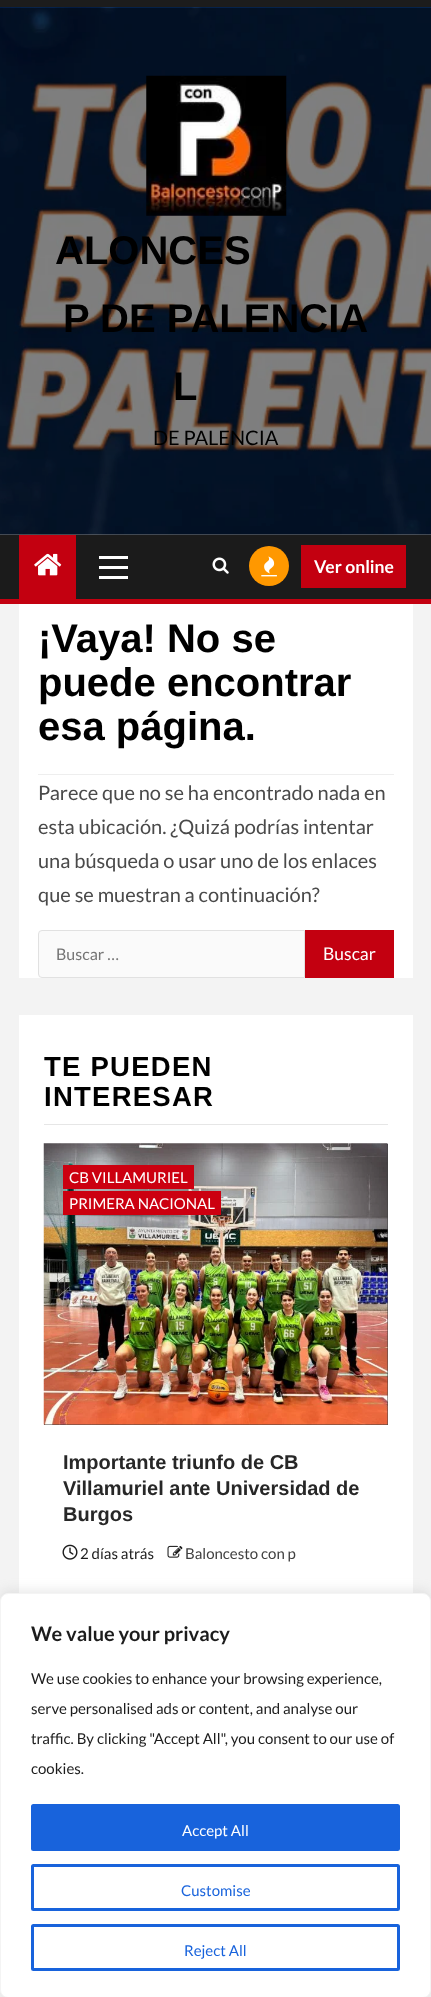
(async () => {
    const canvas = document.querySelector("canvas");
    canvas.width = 431;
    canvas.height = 1997;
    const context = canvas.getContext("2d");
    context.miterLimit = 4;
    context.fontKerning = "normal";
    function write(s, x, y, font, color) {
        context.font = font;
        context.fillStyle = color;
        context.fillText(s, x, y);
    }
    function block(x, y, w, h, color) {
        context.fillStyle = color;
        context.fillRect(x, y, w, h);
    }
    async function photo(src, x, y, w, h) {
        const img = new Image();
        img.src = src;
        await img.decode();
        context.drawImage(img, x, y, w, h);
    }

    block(0, 0, 431, 1997, "rgb(243, 243, 243)");
    block(0, 534, 431, 1, "rgb(128, 128, 128)");
    block(0, 0, 431, 7, "rgb(28, 28, 28)");
    await photo("media/1.png", 0, 7, 431, 528);
    await photo("media/2.png", 146, 75, 141, 141);
    write("ALONCES", 55, 264, "bold 40px Liberation Sans", "rgb(0, 0, 0)");
    write("P DE PALENCIA", 63, 332, "bold 40px Liberation Sans", "rgb(0, 0, 0)");
    write("L", 173, 400, "bold 40px Liberation Sans", "rgb(0, 0, 0)");
    write("DE PALENCIA", 153, 445, "20px Lato", "rgb(0, 0, 0)");
    block(0, 535, 431, 64, "rgb(27, 27, 27)");
    block(0, 599, 431, 5, "rgb(195, 0, 16)");
    block(19, 535, 57, 64, "rgb(195, 0, 16)");
    await photo("media/3.png", 34, 553, 28, 23);
    block(99, 566, 29, 3, "rgb(255, 255, 255)");
    block(99, 556, 29, 3, "rgb(255, 255, 255)");
    block(99, 576, 29, 3, "rgb(255, 255, 255)");
    await photo("media/4.png", 212, 557, 17, 17);
    context.fillStyle = "rgb(255, 152, 0)";
    context.beginPath();
    context.arc(269, 566, 20, 0, Math.PI * 2);
    context.fill();
    await photo("media/5.png", 261, 556, 16, 21);
    block(301, 545, 105, 43, "rgb(195, 0, 16)");
    write("Ver online", 314, 573, "bold 17.5px Lato", "rgb(255, 255, 255)");
    block(19, 604, 394, 374, "rgb(255, 255, 255)");
    block(38, 774, 356, 1, "rgb(238, 238, 238)");
    write("¡Vaya! No se", 38, 652, "bold 40px Liberation Sans", "rgb(0, 0, 0)");
    write("puede encontrar", 38, 696, "bold 40px Liberation Sans", "rgb(0, 0, 0)");
    write("esa página.", 38, 740, "bold 40px Liberation Sans", "rgb(0, 0, 0)");
    write("Parece que no se ha encontrado nada en", 38, 800, "20px Lato", "rgb(74, 74, 74)");
    write("esta ubicación. ¿Quizá podrías intentar", 38, 834, "20px Lato", "rgb(74, 74, 74)");
    write("una búsqueda o usar uno de los enlaces", 38, 868, "20px Lato", "rgb(74, 74, 74)");
    write("que se muestran a continuación?", 38, 902, "20px Lato", "rgb(74, 74, 74)");
    context.fillStyle = "rgb(250, 250, 250)";
    context.beginPath();
    context.roundRect(38.5, 930.5, 266, 47, [3.5, 0, 0, 3.5]);
    context.fill();
    context.strokeStyle = "rgb(225, 225, 225)";
    context.stroke();
    write("Buscar …", 56, 960, "16px Lato", "rgb(117, 117, 117)");
    block(305, 930, 89, 48, "rgb(195, 0, 16)");
    write("Buscar", 323, 960, "17.5px Lato", "rgb(255, 255, 255)");
    block(19, 1015, 394, 578, "rgb(255, 255, 255)");
    context.letterSpacing = "1.25px";
    write("TE PUEDEN", 44, 1076, "bold 27.5px Liberation Sans", "rgb(0, 0, 0)");
    write("INTERESAR", 44, 1106, "bold 27.5px Liberation Sans", "rgb(0, 0, 0)");
    block(44, 1124, 344, 1, "rgb(230, 230, 230)");
    block(44, 1144, 344, 281, "rgb(64, 64, 64)");
    await photo("media/6.png", 43, 1143, 345, 282);
    block(63, 1165, 131, 24, "rgb(204, 0, 16)");
    context.letterSpacing = "0px";
    write("CB VILLAMURIEL", 69, 1183, "15px Lato", "rgb(255, 255, 255)");
    block(63, 1191, 158, 24, "rgb(204, 0, 16)");
    write("PRIMERA NACIONAL", 69, 1209, "15px Lato", "rgb(255, 255, 255)");
    write("Importante triunfo de CB", 63, 1469, "bold 20px Liberation Sans", "rgb(39, 39, 39)");
    write("Villamuriel ante Universidad de", 63, 1495, "bold 20px Liberation Sans", "rgb(39, 39, 39)");
    write("Burgos", 63, 1521, "bold 20px Liberation Sans", "rgb(39, 39, 39)");
    await photo("media/7.png", 62, 1544, 16, 16);
    write("2 días atrás", 80, 1559, "15px Lato", "rgb(28, 28, 28)");
    await photo("media/8.png", 167, 1545, 16, 13);
    write("Baloncesto con p", 185, 1559, "15px Lato", "rgb(64, 64, 64)");
    context.fillStyle = "rgba(172, 171, 171, 0.3)";
    context.filter = "blur(6px)";
    context.beginPath();
    context.roundRect(0, 1591, 431, 405, 8);
    context.fill();
    context.filter = "none";
    context.fillStyle = "rgb(255, 255, 255)";
    context.beginPath();
    context.roundRect(0.5, 1593.5, 430, 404, 7.5);
    context.fill();
    context.strokeStyle = "rgb(244, 244, 244)";
    context.stroke();
    write("We value your privacy", 31, 1641, "bold 20px Lato", "rgb(28, 28, 28)");
    write("We use cookies to enhance your browsing experience,", 31, 1684, "15px Lato", "rgb(28, 28, 28)");
    write("serve personalised ads or content, and analyse our", 31, 1714, "15px Lato", "rgb(28, 28, 28)");
    write("traffic. By clicking \"Accept All\", you consent to our use of", 31, 1744, "15px Lato", "rgb(28, 28, 28)");
    write("cookies.", 31, 1774, "15px Lato", "rgb(28, 28, 28)");
    context.fillStyle = "rgb(24, 99, 220)";
    context.beginPath();
    context.roundRect(32.5, 1805.5, 366, 44, 1);
    context.fill();
    context.strokeStyle = "rgb(24, 99, 220)";
    context.lineWidth = 3;
    context.stroke();
    write("Accept All", 182, 1836, "15px Lato", "rgb(255, 255, 255)");
    context.beginPath();
    context.roundRect(32.5, 1865.5, 366, 44, 1);
    context.stroke();
    write("Customise", 181, 1896, "15px Lato", "rgb(24, 99, 220)");
    context.beginPath();
    context.roundRect(32.5, 1925.5, 366, 44, 1);
    context.stroke();
    write("Reject All", 184, 1956, "15px Lato", "rgb(24, 99, 220)");
})();
